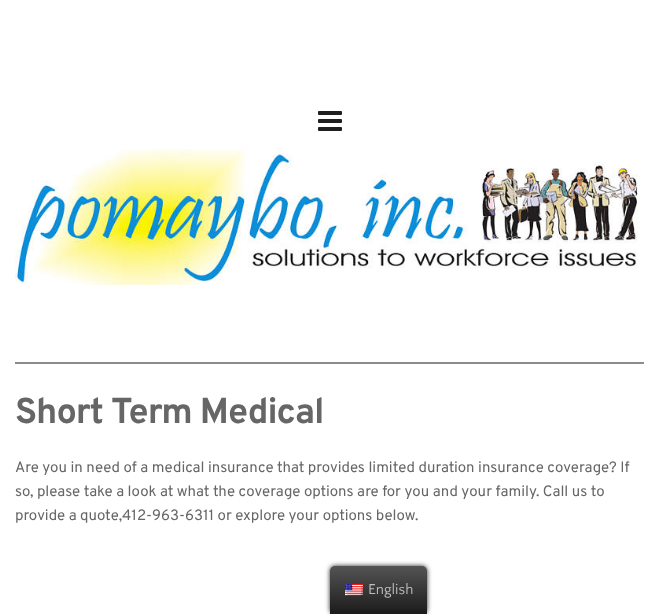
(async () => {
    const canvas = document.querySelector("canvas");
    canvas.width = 659;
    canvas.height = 614;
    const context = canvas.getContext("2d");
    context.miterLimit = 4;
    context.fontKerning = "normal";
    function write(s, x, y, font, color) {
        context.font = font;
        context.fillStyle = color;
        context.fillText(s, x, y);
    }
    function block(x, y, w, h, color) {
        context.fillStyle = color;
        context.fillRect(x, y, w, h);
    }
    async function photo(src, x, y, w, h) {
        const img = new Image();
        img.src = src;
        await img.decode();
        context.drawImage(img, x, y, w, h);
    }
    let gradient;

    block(0, 0, 659, 614, "rgb(255, 255, 255)");
    await photo("media/1.png", 318, 111, 24, 20);
    await photo("media/2.png", 15, 149, 623, 136);
    block(15, 362, 629, 2, "rgb(140, 140, 140)");
    context.letterSpacing = "-1px";
    write("Short Term Medical", 15, 423, "bold 36px Overpass", "rgb(102, 102, 102)");
    context.letterSpacing = "0px";
    write("Are you in need of a medical insurance that provides limited duration insurance coverage? If", 15, 472, "15px Overpass", "rgb(102, 102, 102)");
    write("so, please take a look at what the coverage options are for you and your family. Call us to", 15, 496, "15px Overpass", "rgb(102, 102, 102)");
    write("provide a quote,412-963-6311 or explore your options below.", 15, 520, "15px Overpass", "rgb(102, 102, 102)");
    context.fillStyle = "rgb(33, 33, 33)";
    context.filter = "blur(2.5px)";
    context.beginPath();
    context.roundRect(330, 566, 97, 48, 5);
    context.fill();
    context.filter = "none";
    gradient = context.createLinearGradient(379, 614, 379, 566);
    gradient.addColorStop(0, "rgb(27, 27, 27)");
    gradient.addColorStop(1, "rgb(84, 84, 84)");
    context.fillStyle = gradient;
    context.beginPath();
    context.roundRect(330, 566, 97, 48, [5, 5, 0, 0]);
    context.fill();
    await photo("media/3.png", 345, 584, 18, 12);
    write("English", 368, 594, "15px Quattrocento Sans", "rgb(189, 189, 189)");
})();
